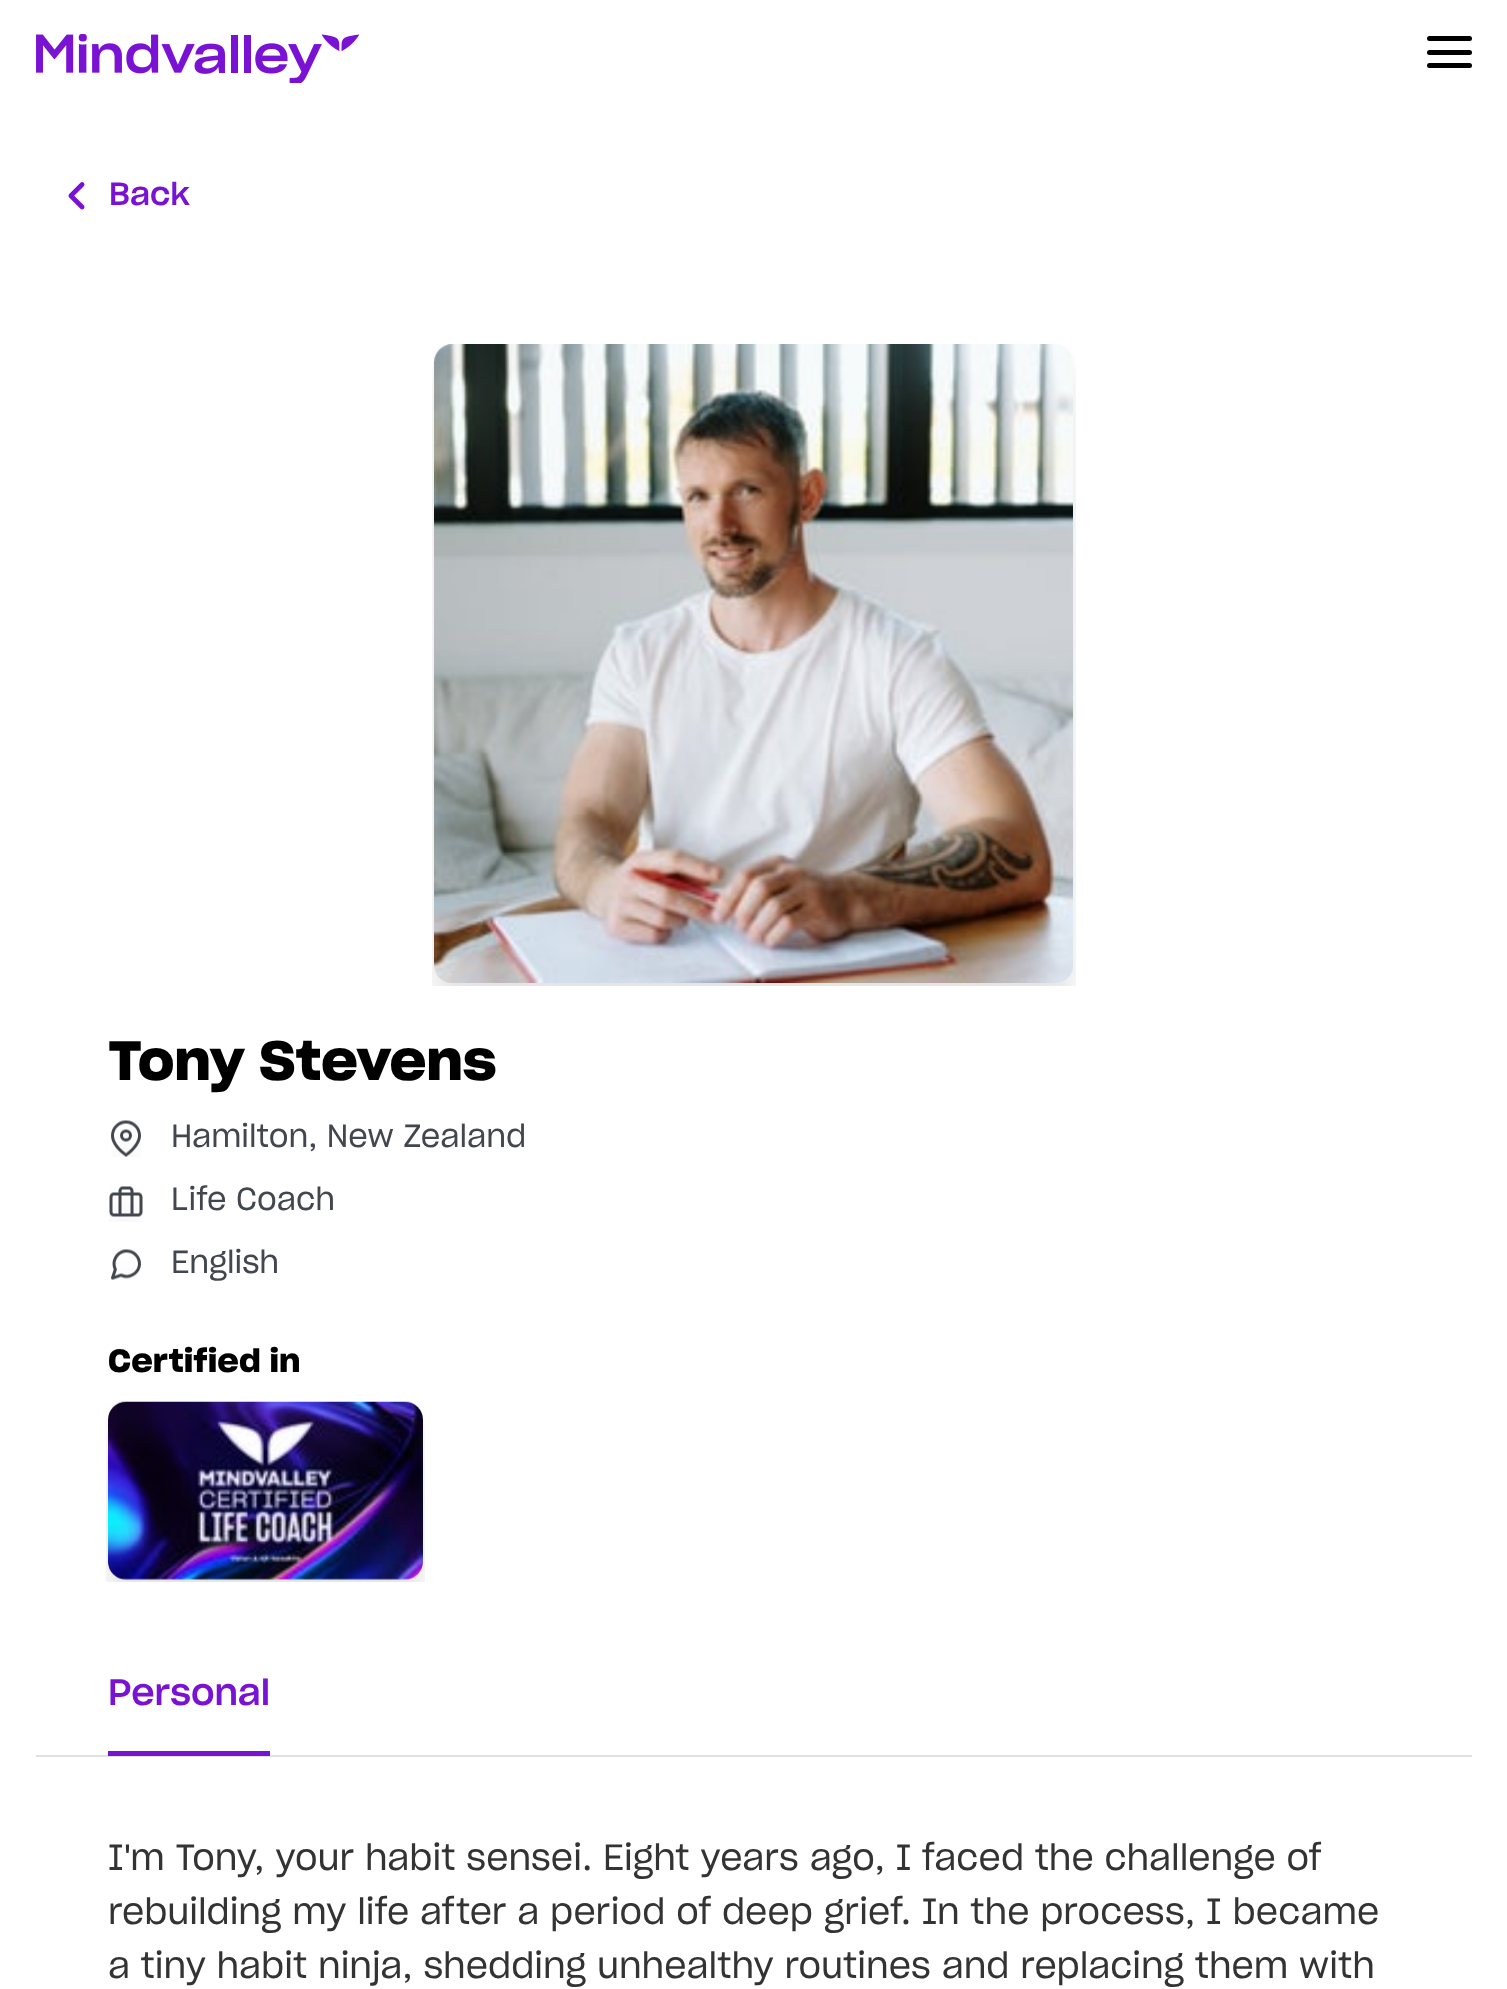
(async () => {
    const canvas = document.querySelector("canvas");
    canvas.width = 1507;
    canvas.height = 1989;
    const context = canvas.getContext("2d");
    context.miterLimit = 4;
    context.fontKerning = "normal";
    function write(s, x, y, font, color) {
        context.font = font;
        context.fillStyle = color;
        context.fillText(s, x, y);
    }
    function block(x, y, w, h, color) {
        context.fillStyle = color;
        context.fillRect(x, y, w, h);
    }
    function card(x, y, w, h, r, color) {
        context.fillStyle = color;
        context.beginPath();
        context.roundRect(x, y, w, h, r);
        context.fill();
    }
    async function photo(src, x, y, w, h) {
        const img = new Image();
        img.src = src;
        await img.decode();
        context.drawImage(img, x, y, w, h);
    }

    block(0, 0, 1507, 1989, "rgb(255, 255, 255)");
    await photo("media/1.png", 36, 34, 324, 49);
    card(1427, 36, 45, 5, 2.5, "rgb(0, 0, 0)");
    card(1427, 50, 45, 5, 2.5, "rgb(0, 0, 0)");
    card(1427, 63, 45, 5, 2.5, "rgb(0, 0, 0)");
    await photo("media/2.png", 68, 182, 17, 28);
    write("Back", 109, 205, "500 31.5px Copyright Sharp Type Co", "rgb(122, 18, 212)");
    await photo("media/3.png", 432, 344, 644, 642);
    write("Tony Stevens", 108, 1080, "600 54px Copyright Sharp Type Co", "rgb(0, 0, 0)");
    await photo("media/4.png", 111, 1120, 30, 37);
    write("Hamilton, New Zealand", 171, 1147, "31.5px Copyright Sharp Type Co", "rgb(65, 70, 79)");
    await photo("media/5.png", 109, 1186, 34, 36);
    write("Life Coach", 171, 1210, "31.5px Copyright Sharp Type Co", "rgb(65, 70, 79)");
    await photo("media/6.png", 111, 1249, 30, 31);
    write("English", 171, 1273, "31.5px Copyright Sharp Type Co", "rgb(65, 70, 79)");
    write("Certified in", 108, 1372, "600 31.5px Copyright Sharp Type Co", "rgb(0, 0, 0)");
    await photo("media/7.png", 106, 1401, 319, 181);
    block(36, 1755, 1436, 2, "rgb(223, 225, 229)");
    block(108, 1751, 162, 5, "rgb(122, 18, 212)");
    write("Personal", 108, 1705, "500 36px Copyright Sharp Type Co", "rgb(122, 18, 212)");
    write("I'm Tony, your habit sensei. Eight years ago, I faced the challenge of", 108, 1870, "36px Copyright Sharp Type Co", "rgb(51, 51, 51)");
    write("rebuilding my life after a period of deep grief. In the process, I became", 108, 1924, "36px Copyright Sharp Type Co", "rgb(51, 51, 51)");
    write("a tiny habit ninja, shedding unhealthy routines and replacing them with", 108, 1978, "36px Copyright Sharp Type Co", "rgb(51, 51, 51)");
})();
